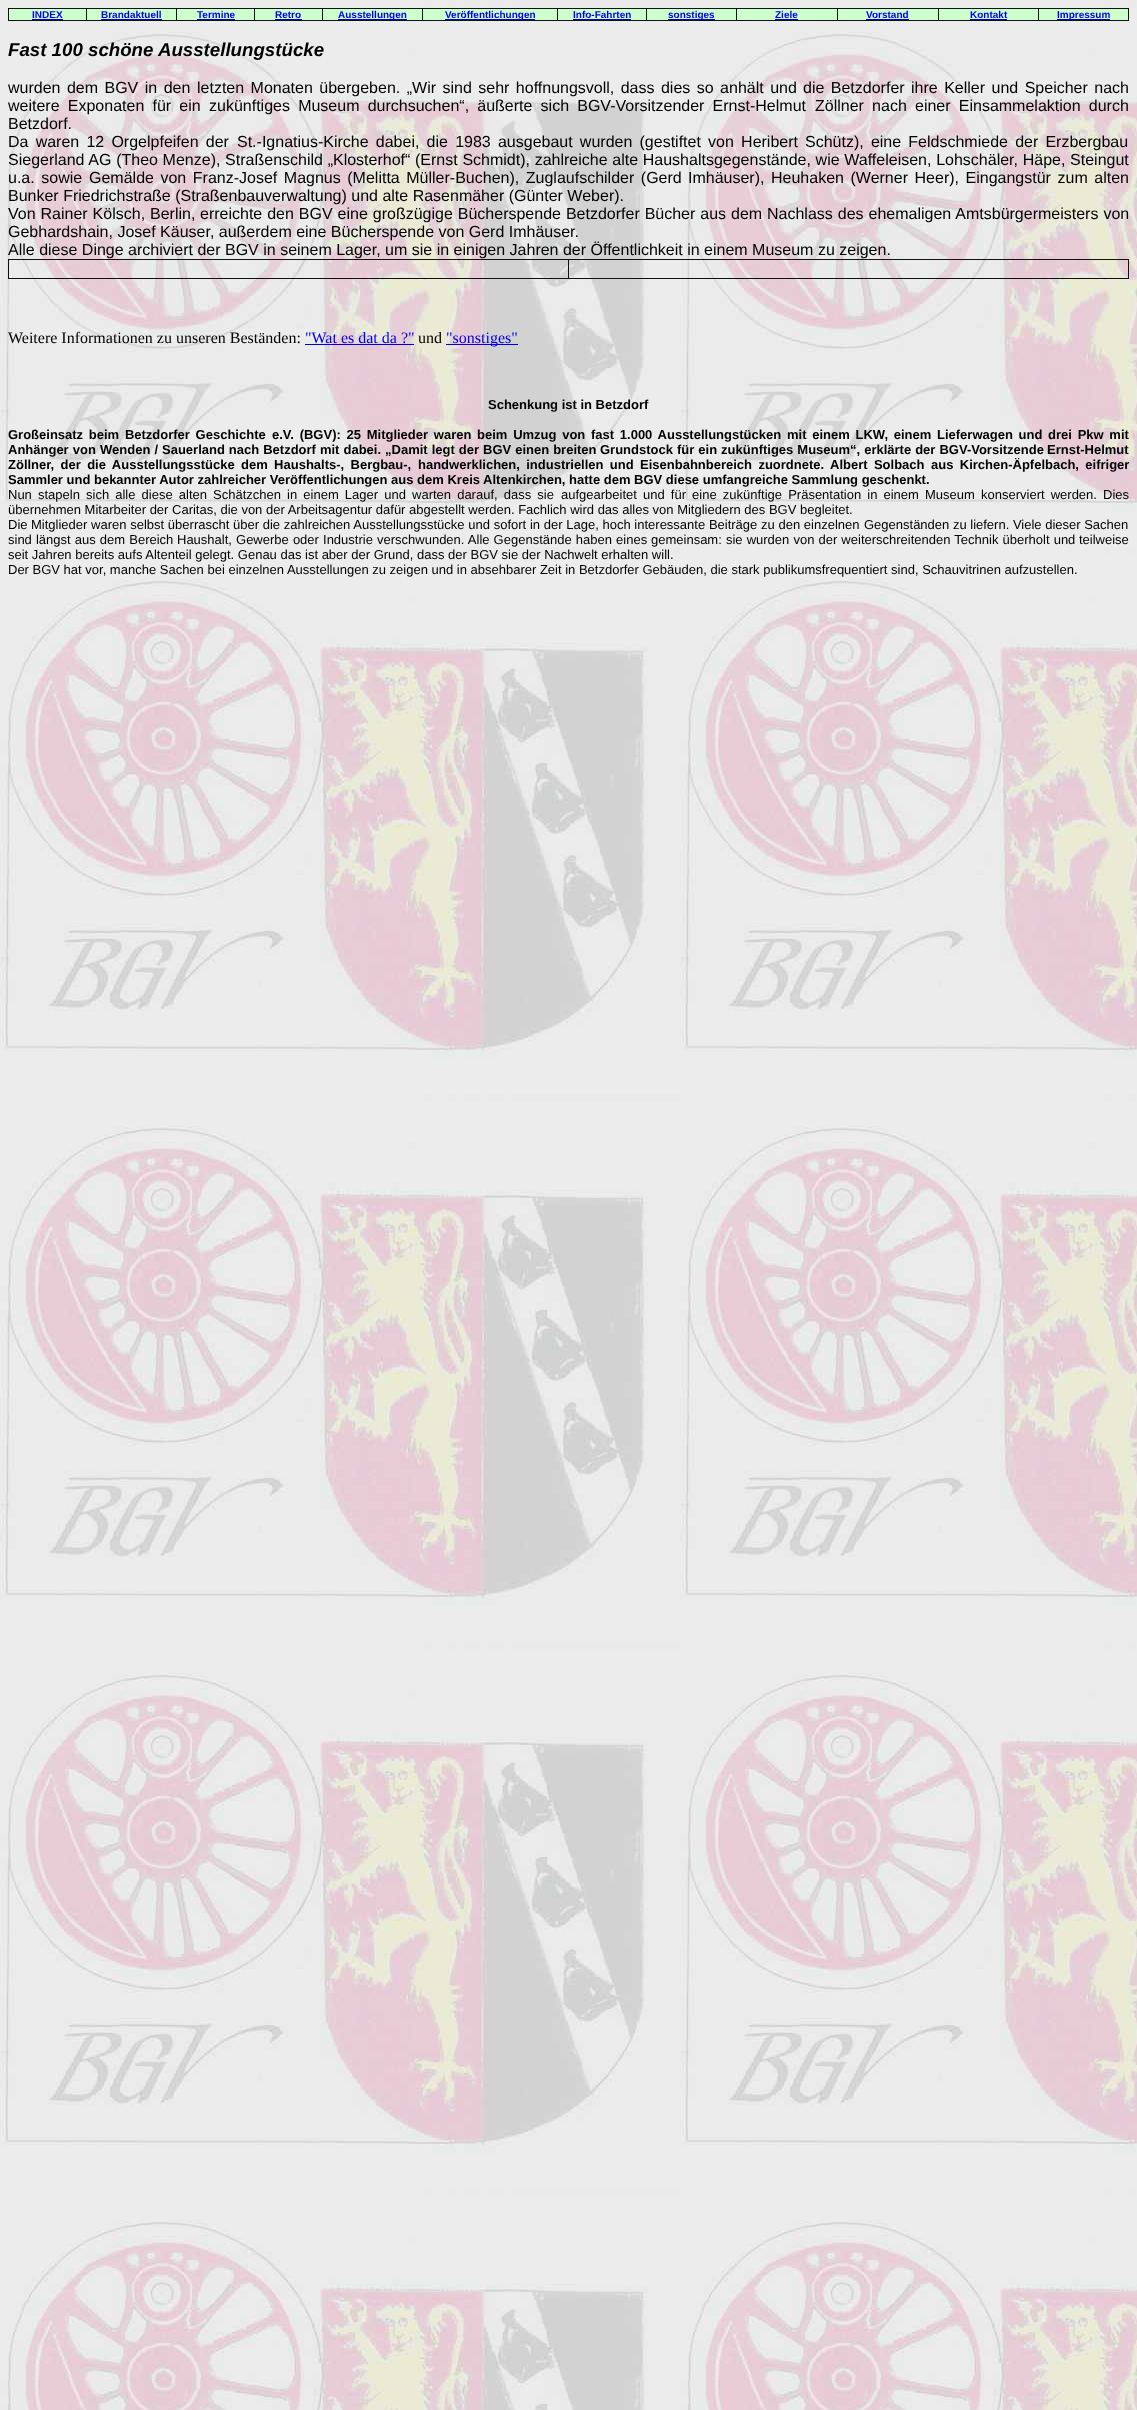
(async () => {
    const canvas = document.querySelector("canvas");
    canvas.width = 1137;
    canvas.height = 2410;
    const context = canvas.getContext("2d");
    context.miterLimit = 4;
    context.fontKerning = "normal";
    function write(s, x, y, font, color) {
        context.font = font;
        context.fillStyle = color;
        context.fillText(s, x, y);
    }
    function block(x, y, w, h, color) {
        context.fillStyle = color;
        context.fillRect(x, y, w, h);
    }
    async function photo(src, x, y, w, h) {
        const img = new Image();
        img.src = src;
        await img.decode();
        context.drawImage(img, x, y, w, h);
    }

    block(0, 0, 1137, 2410, "rgb(255, 255, 255)");
    await photo("media/1.png", 0, 0, 1137, 2410);
    block(8, 8, 1121, 1, "rgb(17, 17, 17)");
    block(1128, 8, 1, 13, "rgb(17, 17, 17)");
    block(8, 20, 1121, 1, "rgb(17, 17, 17)");
    block(8, 8, 1, 13, "rgb(17, 17, 17)");
    block(9, 9, 77, 11, "rgb(204, 255, 204)");
    write("INDEX", 32, 18, "bold 10px Liberation Sans", "rgb(0, 0, 238)");
    block(32, 19, 31, 1, "rgb(0, 0, 238)");
    block(87, 9, 89, 11, "rgb(204, 255, 204)");
    block(86, 8, 1, 13, "rgb(17, 17, 17)");
    write("Brandaktuell", 101, 18, "bold 10px Liberation Sans", "rgb(0, 0, 238)");
    block(101, 19, 61, 1, "rgb(0, 0, 238)");
    block(177, 9, 77, 11, "rgb(204, 255, 204)");
    block(176, 8, 1, 13, "rgb(17, 17, 17)");
    write("Termine", 197, 18, "bold 10px Liberation Sans", "rgb(0, 0, 238)");
    block(197, 19, 38, 1, "rgb(0, 0, 238)");
    block(255, 9, 67, 11, "rgb(204, 255, 204)");
    block(254, 8, 1, 13, "rgb(17, 17, 17)");
    write("Retro", 275, 18, "bold 10px Liberation Sans", "rgb(0, 0, 238)");
    block(275, 19, 27, 1, "rgb(0, 0, 238)");
    block(323, 9, 99, 11, "rgb(204, 255, 204)");
    block(322, 8, 1, 13, "rgb(17, 17, 17)");
    block(338, 19, 69, 1, "rgb(0, 0, 238)");
    write("Ausstellungen", 338, 18, "bold 10px Liberation Sans", "rgb(0, 0, 238)");
    block(423, 9, 134, 11, "rgb(204, 255, 204)");
    block(422, 8, 1, 13, "rgb(17, 17, 17)");
    block(445, 19, 90, 1, "rgb(0, 0, 238)");
    write("Veröffentlichungen", 445, 18, "bold 10px Liberation Sans", "rgb(0, 0, 238)");
    block(558, 9, 88, 11, "rgb(204, 255, 204)");
    block(557, 8, 1, 13, "rgb(17, 17, 17)");
    write("Info-Fahrten", 573, 18, "bold 10px Liberation Sans", "rgb(0, 0, 238)");
    block(573, 19, 58, 1, "rgb(0, 0, 238)");
    block(647, 9, 89, 11, "rgb(204, 255, 204)");
    block(646, 8, 1, 13, "rgb(17, 17, 17)");
    block(668, 19, 47, 1, "rgb(0, 0, 238)");
    write("sonstiges", 668, 18, "bold 10px Liberation Sans", "rgb(0, 0, 238)");
    block(737, 9, 100, 11, "rgb(204, 255, 204)");
    block(736, 8, 1, 13, "rgb(17, 17, 17)");
    write("Ziele", 775, 18, "bold 10px Liberation Sans", "rgb(0, 0, 238)");
    block(775, 19, 23, 1, "rgb(0, 0, 238)");
    block(838, 9, 100, 11, "rgb(204, 255, 204)");
    block(837, 8, 1, 13, "rgb(17, 17, 17)");
    write("Vorstand", 866, 18, "bold 10px Liberation Sans", "rgb(0, 0, 238)");
    block(866, 19, 43, 1, "rgb(0, 0, 238)");
    block(939, 9, 99, 11, "rgb(204, 255, 204)");
    block(938, 8, 1, 13, "rgb(17, 17, 17)");
    write("Kontakt", 970, 18, "bold 10px Liberation Sans", "rgb(0, 0, 238)");
    block(970, 19, 37, 1, "rgb(0, 0, 238)");
    block(1039, 9, 89, 11, "rgb(204, 255, 204)");
    block(1038, 8, 1, 13, "rgb(17, 17, 17)");
    block(1057, 19, 53, 1, "rgb(0, 0, 238)");
    write("Impressum", 1057, 18, "bold 10px Liberation Sans", "rgb(0, 0, 238)");
    write("Fast 100 schöne Ausstellungstücke", 8, 56, "italic bold 18.7px Liberation Sans", "rgb(0, 0, 0)");
    context.wordSpacing = "2px";
    write("wurden dem BGV in den", 8, 93, "16px Liberation Sans", "rgb(0, 0, 0)");
    write("letzten Monaten übergeben. „Wir sind sehr hoffnungsvoll, dass dies so anhält und", 197, 93, "16px Liberation Sans", "rgb(0, 0, 0)");
    write("die Betzdorfer ihre Keller und Speicher nach", 803, 93, "16px Liberation Sans", "rgb(0, 0, 0)");
    context.wordSpacing = "3.75px";
    write("weitere Exponaten für ein", 8, 111, "16px Liberation Sans", "rgb(0, 0, 0)");
    write("zukünftiges Museum durchsuchen“, äußerte sich BGV-Vorsitzender Ernst-Helmut", 209, 111, "16px Liberation Sans", "rgb(0, 0, 0)");
    write("Zöllner nach einer Einsammelaktion durch", 815, 111, "16px Liberation Sans", "rgb(0, 0, 0)");
    context.wordSpacing = "0px";
    write("Betzdorf.", 8, 129, "16px Liberation Sans", "rgb(0, 0, 0)");
    context.wordSpacing = "2.75px";
    write("Da waren 12 Orgelpfeifen der", 8, 147, "16px Liberation Sans", "rgb(0, 0, 0)");
    write("St.-Ignatius-Kirche dabei, die 1983 ausgebaut wurden (gestiftet von Heribert", 237, 147, "16px Liberation Sans", "rgb(0, 0, 0)");
    write("Schütz), eine Feldschmiede der Erzbergbau", 805, 147, "16px Liberation Sans", "rgb(0, 0, 0)");
    context.wordSpacing = "0.25px";
    write("Siegerland AG (Theo Menze), Straßenschild „Klosterhof“ (Ernst Schmidt), zahlreiche alte Haushaltsgegenstände, wie Waffeleisen, Lohschäler, Häpe, Steingut", 8, 165, "16px Liberation Sans", "rgb(0, 0, 0)");
    context.wordSpacing = "2.1px";
    write("u.a. sowie", 8, 183, "16px Liberation Sans", "rgb(0, 0, 0)");
    write("Gemälde von Franz-Josef Magnus (Melitta Müller-Buchen), Zuglaufschilder (Gerd", 89, 183, "16px Liberation Sans", "rgb(0, 0, 0)");
    write("Imhäuser), Heuhaken (Werner Heer), Eingangstür zum alten", 688, 183, "16px Liberation Sans", "rgb(0, 0, 0)");
    context.wordSpacing = "0px";
    write("Bunker Friedrichstraße (Straßenbauverwaltung) und alte Rasenmäher (Günter Weber).", 8, 201, "16px Liberation Sans", "rgb(0, 0, 0)");
    context.wordSpacing = "0.5px";
    write("Von Rainer Kölsch, Berlin,", 8, 219, "16px Liberation Sans", "rgb(0, 0, 0)");
    write("erreichte den BGV eine großzügige Bücherspende Betzdorfer Bücher aus dem", 200, 219, "16px Liberation Sans", "rgb(0, 0, 0)");
    write("Nachlass des ehemaligen Amtsbürgermeisters von", 767, 219, "16px Liberation Sans", "rgb(0, 0, 0)");
    context.wordSpacing = "0px";
    write("Gebhardshain, Josef Käuser, außerdem eine Bücherspende von Gerd Imhäuser.", 8, 237, "16px Liberation Sans", "rgb(0, 0, 0)");
    write("Alle diese Dinge archiviert der BGV in seinem Lager, um sie in einigen Jahren der Öffentlichkeit in einem Museum zu zeigen.", 8, 255, "16px Liberation Sans", "rgb(0, 0, 0)");
    block(8, 259, 1121, 1, "rgb(17, 17, 17)");
    block(1128, 259, 1, 20, "rgb(17, 17, 17)");
    block(8, 278, 1121, 1, "rgb(17, 17, 17)");
    block(8, 259, 1, 20, "rgb(17, 17, 17)");
    block(568, 259, 1, 20, "rgb(17, 17, 17)");
    write("Weitere Informationen zu unseren Beständen:", 8, 343, "16px Liberation Serif", "rgb(0, 0, 0)");
    write("\"Wat es dat da ?\"", 305, 343, "16px Liberation Serif", "rgb(0, 0, 238)");
    block(305, 344, 109, 1, "rgb(0, 0, 238)");
    write("und", 418, 343, "16px Liberation Serif", "rgb(0, 0, 0)");
    block(446, 344, 72, 1, "rgb(0, 0, 238)");
    write("\"sonstiges\"", 446, 343, "16px Liberation Serif", "rgb(0, 0, 238)");
    write("Schenkung ist in Betzdorf", 488, 409, "bold 13px Liberation Sans", "rgb(0, 0, 0)");
    context.wordSpacing = "2.1px";
    write("Großeinsatz beim Betzdorfer Geschichte", 8, 439, "bold 13px Liberation Sans", "rgb(0, 0, 0)");
    write("e.V. (BGV): 25 Mitglieder waren beim Umzug von fast 1.000 Ausstellungstücken", 272, 439, "bold 13px Liberation Sans", "rgb(0, 0, 0)");
    write("mit einem LKW, einem Lieferwagen und drei Pkw mit", 787, 439, "bold 13px Liberation Sans", "rgb(0, 0, 0)");
    context.wordSpacing = "0.5px";
    write("Anhänger von Wenden /", 8, 454, "bold 13px Liberation Sans", "rgb(0, 0, 0)");
    context.wordSpacing = "0.4px";
    write("Sauerland nach Betzdorf mit dabei. „Damit legt der BGV einen breiten", 162, 454, "bold 13px Liberation Sans", "rgb(0, 0, 0)");
    write("Grundstock für ein zukünftiges Museum“, erklärte der BGV-Vorsitzende", 600, 454, "bold 13px Liberation Sans", "rgb(0, 0, 0)");
    context.wordSpacing = "0px";
    write("Ernst-Helmut", 1047, 454, "bold 13px Liberation Sans", "rgb(0, 0, 0)");
    context.wordSpacing = "2.75px";
    write("Zöllner, der die Ausstellungsstücke dem Haushalts-, Bergbau-,", 8, 469, "bold 13px Liberation Sans", "rgb(0, 0, 0)");
    write("handwerklichen, industriellen und Eisenbahnbereich zuordnete. Albert Solbach", 418, 469, "bold 13px Liberation Sans", "rgb(0, 0, 0)");
    write("aus Kirchen-Äpfelbach, eifriger", 931, 469, "bold 13px Liberation Sans", "rgb(0, 0, 0)");
    context.wordSpacing = "0px";
    write("Sammler und bekannter Autor zahlreicher Veröffentlichungen aus dem Kreis Altenkirchen, hatte dem BGV diese umfangreiche Sammlung geschenkt.", 8, 484, "bold 13px Liberation Sans", "rgb(0, 0, 0)");
    context.wordSpacing = "2.5px";
    write("Nun stapeln", 8, 499, "13px Liberation Sans", "rgb(0, 0, 0)");
    write("sich alle diese alten Schätzchen in einem Lager und warten darauf, dass sie", 86, 499, "13px Liberation Sans", "rgb(0, 0, 0)");
    write("aufgearbeitet und für eine zukünftige Präsentation in einem Museum", 561, 499, "13px Liberation Sans", "rgb(0, 0, 0)");
    write("konserviert werden. Dies", 981, 499, "13px Liberation Sans", "rgb(0, 0, 0)");
    context.wordSpacing = "0px";
    write("übernehmen Mitarbeiter der Caritas, die von der Arbeitsagentur dafür abgestellt werden. Fachlich wird das alles von Mitgliedern des BGV begleitet.", 8, 514, "13px Liberation Sans", "rgb(0, 0, 0)");
    write("Die", 8, 529, "13px Liberation Sans", "rgb(0, 0, 0)");
    context.wordSpacing = "0.1px";
    write("Mitglieder waren selbst überrascht über die zahlreichen Ausstellungsstücke und sofort in der Lage, hoch interessante Beiträge zu den einzelnen", 31, 529, "13px Liberation Sans", "rgb(0, 0, 0)");
    context.wordSpacing = "0px";
    write("Gegenständen zu liefern. Viele dieser Sachen", 864, 529, "13px Liberation Sans", "rgb(0, 0, 0)");
    context.wordSpacing = "0.5px";
    write("sind längst aus dem Bereich", 8, 544, "13px Liberation Sans", "rgb(0, 0, 0)");
    write("Haushalt, Gewerbe oder Industrie verschwunden. Alle Gegenstände haben eines", 177, 544, "13px Liberation Sans", "rgb(0, 0, 0)");
    write("gemeinsam: sie wurden von der weiterschreitenden Technik überholt und", 651, 544, "13px Liberation Sans", "rgb(0, 0, 0)");
    context.wordSpacing = "0px";
    write("teilweise", 1079, 544, "13px Liberation Sans", "rgb(0, 0, 0)");
    write("seit Jahren bereits aufs Altenteil gelegt. Genau das ist aber der Grund, dass der BGV sie der Nachwelt erhalten will.", 8, 559, "13px Liberation Sans", "rgb(0, 0, 0)");
    write("Der BGV hat vor, manche Sachen bei einzelnen Ausstellungen zu zeigen und in absehbarer Zeit in Betzdorfer Gebäuden, die stark publikumsfrequentiert sind, Schauvitrinen aufzustellen.", 8, 574, "13px Liberation Sans", "rgb(0, 0, 0)");
})();
